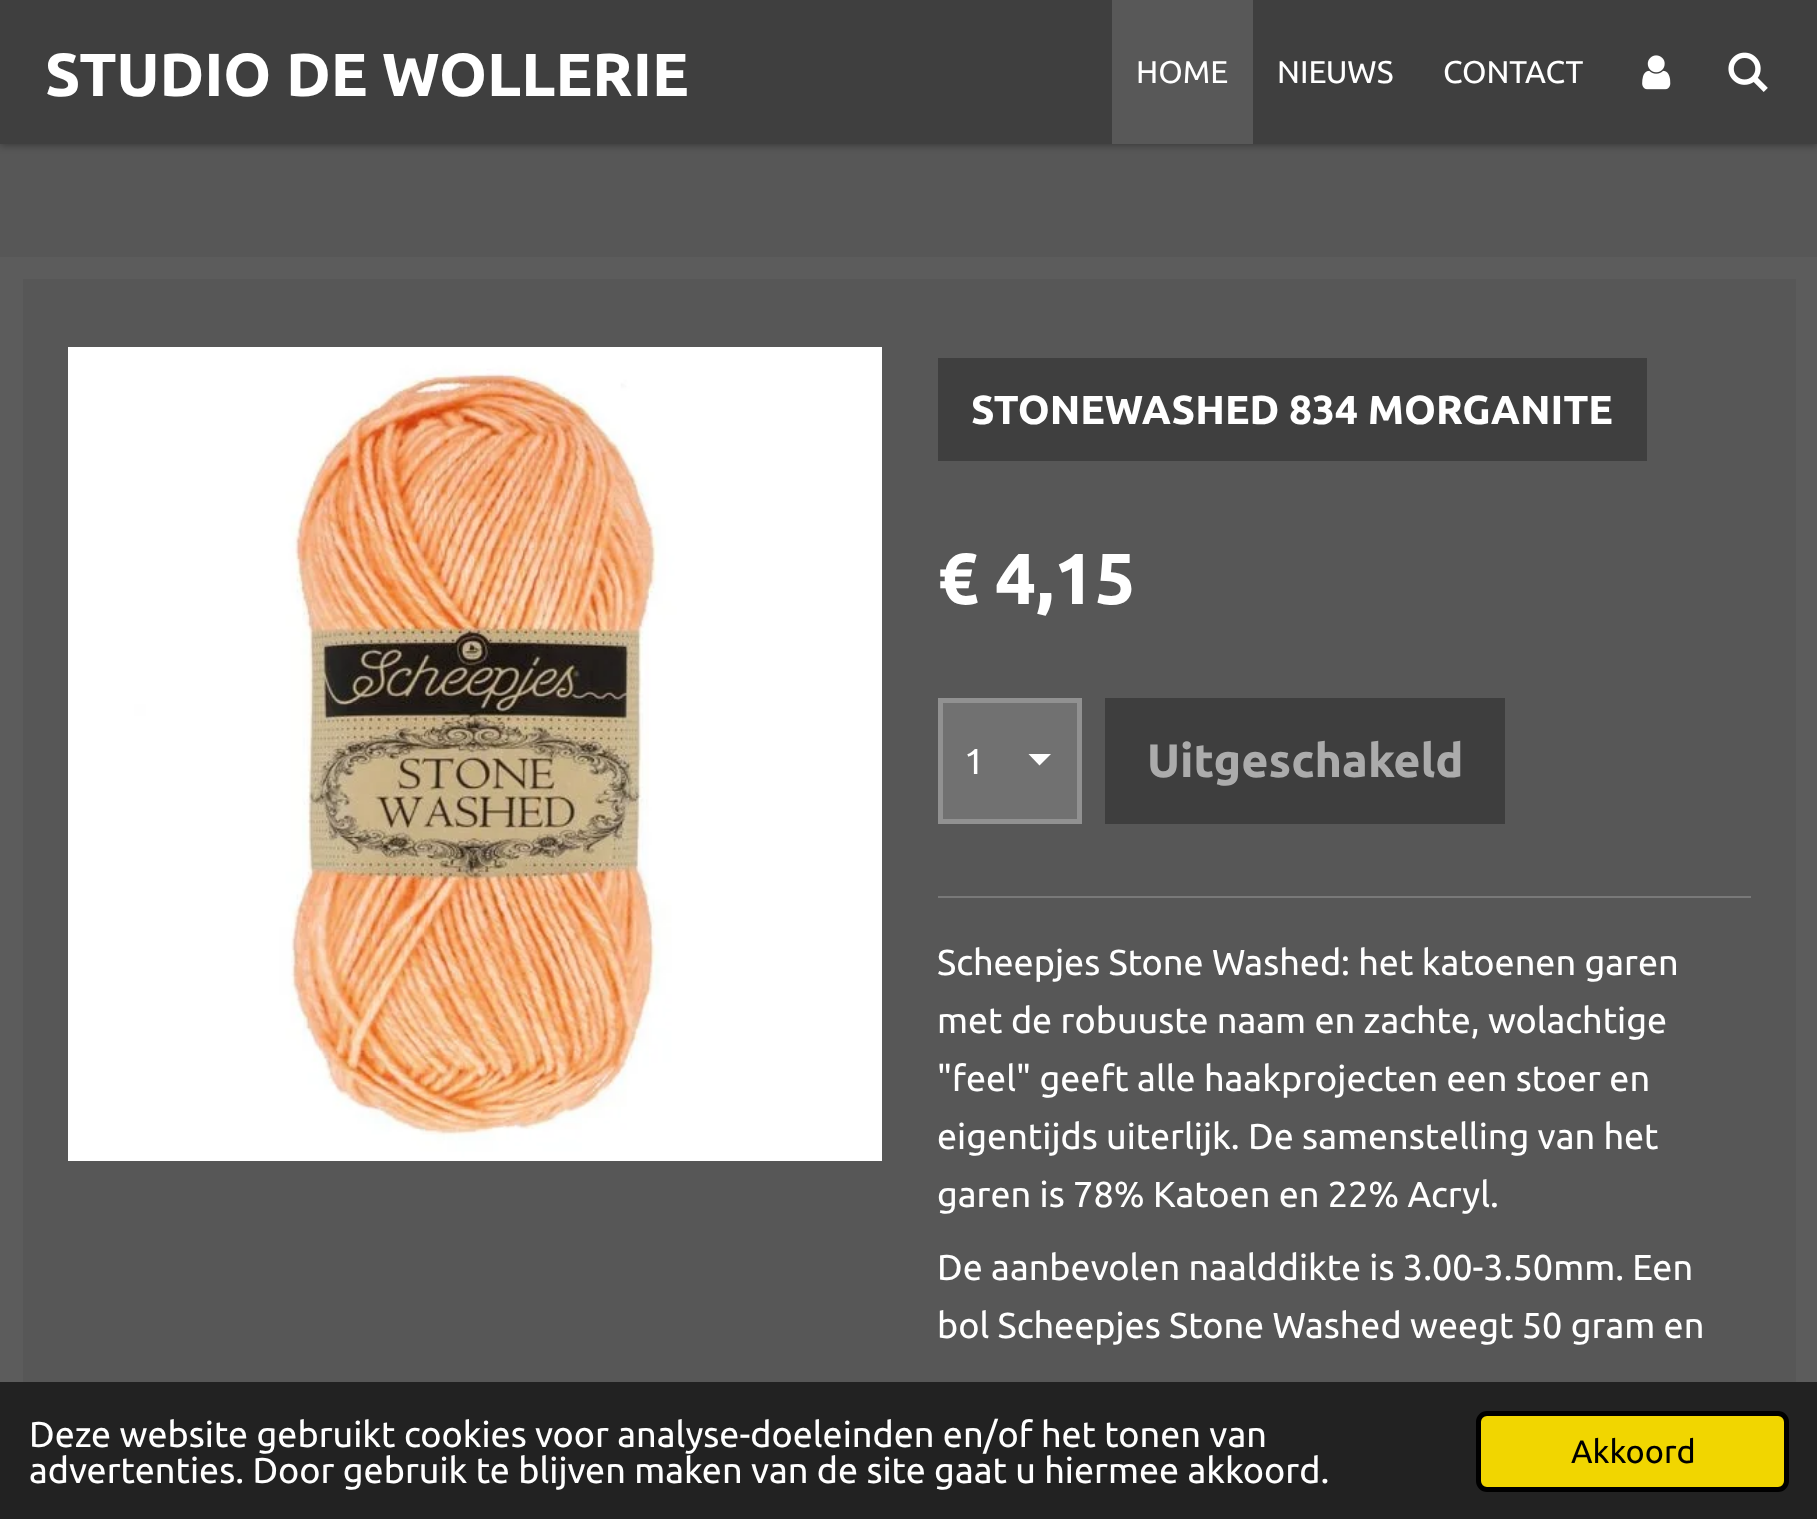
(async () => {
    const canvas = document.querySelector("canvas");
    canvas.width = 1817;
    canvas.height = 1519;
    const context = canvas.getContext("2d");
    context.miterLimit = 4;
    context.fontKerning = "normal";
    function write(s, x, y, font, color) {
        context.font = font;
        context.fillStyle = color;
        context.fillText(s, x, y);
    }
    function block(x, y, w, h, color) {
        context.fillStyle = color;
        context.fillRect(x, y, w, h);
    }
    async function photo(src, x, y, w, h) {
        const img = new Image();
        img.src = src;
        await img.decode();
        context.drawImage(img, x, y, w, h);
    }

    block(0, 0, 1817, 1519, "rgb(87, 87, 87)");
    context.fillStyle = "rgba(0, 0, 0, 0.3)";
    context.filter = "blur(3.5px)";
    context.beginPath();
    context.rect(0, 2, 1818, 144);
    context.fill();
    context.filter = "none";
    block(0, 0, 1817, 144, "rgb(63, 63, 63)");
    write("STUDIO DE WOLLERIE", 45, 96, "bold 60.75px Ubuntu", "rgb(255, 255, 255)");
    block(1112, 0, 141, 144, "rgb(88, 88, 88)");
    write("HOME", 1136, 83, "31.5px Ubuntu", "rgb(255, 255, 255)");
    write("NIEUWS", 1277, 83, "31.5px Ubuntu", "rgb(255, 255, 255)");
    write("CONTACT", 1443, 83, "31.5px Ubuntu", "rgb(255, 255, 255)");
    await photo("media/1.png", 1642, 55, 29, 35);
    await photo("media/2.png", 1728, 52, 40, 40);
    block(0, 257, 1817, 1125, "rgb(92, 92, 92)");
    block(23, 279, 1773, 1103, "rgb(87, 87, 87)");
    await photo("media/3.png", 68, 347, 814, 814);
    block(938, 358, 709, 103, "rgb(63, 63, 63)");
    write("STONEWASHED 834 MORGANITE", 971, 424, "bold 40.5px Ubuntu", "rgb(255, 255, 255)");
    write("€ 4,15", 937, 604, "bold 72px Ubuntu", "rgb(255, 255, 255)");
    block(943, 703, 134, 116, "rgb(113, 113, 113)");
    context.fillStyle = "rgb(255, 255, 255)";
    context.beginPath();
    context.moveTo(1039.5, 765.5);
    context.lineTo(1028.5, 754);
    context.lineTo(1051, 754);
    context.closePath();
    context.fill();
    context.strokeStyle = "rgb(145, 145, 145)";
    context.lineWidth = 5;
    context.strokeRect(940.5, 700.5, 139, 121);
    write("1", 964, 774, "36px Ubuntu", "rgb(255, 255, 255)");
    block(1105, 698, 400, 126, "rgb(62, 62, 62)");
    write("Uitgeschakeld", 1147, 777, "bold 46.75px Ubuntu", "rgb(171, 171, 171)");
    block(938, 896, 813, 2, "rgb(121, 121, 121)");
    write("Scheepjes Stone Washed: het katoenen garen", 937, 975, "36px Ubuntu", "rgb(255, 255, 255)");
    write("met de robuuste naam en zachte, wolachtige", 937, 1033, "36px Ubuntu", "rgb(255, 255, 255)");
    write("\"feel\" geeft alle haakprojecten een stoer en", 937, 1091, "36px Ubuntu", "rgb(255, 255, 255)");
    write("eigentijds uiterlijk. De samenstelling van het", 937, 1149, "36px Ubuntu", "rgb(255, 255, 255)");
    write("garen is 78% Katoen en 22% Acryl.", 937, 1207, "36px Ubuntu", "rgb(255, 255, 255)");
    write("De aanbevolen naalddikte is 3.00-3.50mm. Een", 937, 1280, "36px Ubuntu", "rgb(255, 255, 255)");
    write("bol Scheepjes Stone Washed weegt 50 gram en", 937, 1338, "36px Ubuntu", "rgb(255, 255, 255)");
    block(0, 1382, 1817, 137, "rgb(34, 34, 34)");
    write("Deze website gebruikt cookies voor analyse-doeleinden en/of het tonen van", 29, 1447, "36px Ubuntu", "rgb(255, 255, 255)");
    write("advertenties. Door gebruik te blijven maken van de site gaat u hiermee akkoord.", 29, 1483, "36px Ubuntu", "rgb(255, 255, 255)");
    context.fillStyle = "rgb(241, 214, 0)";
    context.beginPath();
    context.roundRect(1478.5, 1413.5, 308, 76, 8.5);
    context.fill();
    context.strokeStyle = "rgb(0, 0, 0)";
    context.stroke();
    write("Akkoord", 1571, 1463, "32.5px Ubuntu", "rgb(0, 0, 0)");
})();
